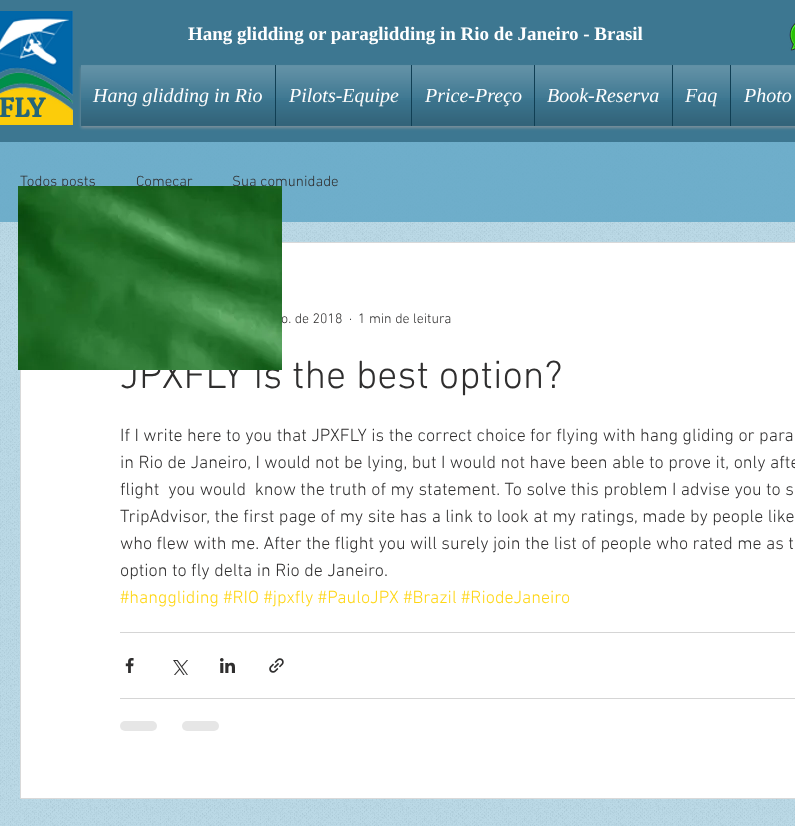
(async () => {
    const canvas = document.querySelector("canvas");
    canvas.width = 795;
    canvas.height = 826;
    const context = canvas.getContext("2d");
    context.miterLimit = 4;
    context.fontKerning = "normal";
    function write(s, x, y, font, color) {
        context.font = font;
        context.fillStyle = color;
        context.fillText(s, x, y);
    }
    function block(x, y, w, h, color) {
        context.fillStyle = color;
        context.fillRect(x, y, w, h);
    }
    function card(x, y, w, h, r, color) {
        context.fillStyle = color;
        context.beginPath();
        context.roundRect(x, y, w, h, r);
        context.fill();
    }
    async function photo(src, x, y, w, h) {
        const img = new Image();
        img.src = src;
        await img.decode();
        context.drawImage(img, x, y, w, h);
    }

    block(0, 0, 795, 826, "rgb(255, 255, 255)");
    block(0, 0, 795, 142, "rgb(61, 119, 145)");
    write("Hang glidding or paraglidding in Rio de Janeiro - Brasil", 188, 40, "bold 19px Liberation Serif", "rgb(255, 255, 255)");
    await photo("media/1.png", 789, 23, 6, 28);
    await photo("media/2.png", 0, 11, 73, 114);
    write("FLY", -1, 117, "28px Calistoga", "rgb(37, 101, 120)");
    context.fillStyle = "rgba(162, 158, 158, 0.6)";
    context.filter = "blur(1.5px)";
    context.beginPath();
    context.rect(81, 67, 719, 61);
    context.fill();
    context.filter = "none";
    block(81, 65, 194, 61, "rgb(61, 119, 145)");
    write("Hang glidding in Rio", 93, 102, "italic 20px Liberation Serif", "rgb(255, 255, 255)");
    await photo("media/3.png", 81, 65, 194, 33);
    await photo("media/4.png", 81, 100, 194, 26);
    block(276, 65, 135, 61, "rgb(61, 119, 145)");
    block(275, 65, 1, 61, "rgb(16, 63, 84)");
    write("Pilots-Equipe", 289, 102, "italic 20px Liberation Serif", "rgb(255, 255, 255)");
    await photo("media/5.png", 276, 65, 135, 33);
    await photo("media/6.png", 276, 100, 135, 26);
    block(412, 65, 122, 61, "rgb(61, 119, 145)");
    block(411, 65, 1, 61, "rgb(16, 63, 84)");
    write("Price-Preço", 425, 102, "italic 20px Liberation Serif", "rgb(255, 255, 255)");
    await photo("media/7.png", 412, 65, 122, 33);
    await photo("media/8.png", 412, 100, 122, 26);
    block(535, 65, 137, 61, "rgb(61, 119, 145)");
    block(534, 65, 1, 61, "rgb(16, 63, 84)");
    write("Book-Reserva", 547, 102, "italic 20px Liberation Serif", "rgb(255, 255, 255)");
    await photo("media/9.png", 535, 65, 137, 33);
    await photo("media/10.png", 535, 100, 137, 26);
    block(673, 65, 57, 61, "rgb(61, 119, 145)");
    block(672, 65, 1, 61, "rgb(16, 63, 84)");
    write("Faq", 685, 102, "italic 20px Liberation Serif", "rgb(255, 255, 255)");
    await photo("media/11.png", 673, 65, 57, 33);
    await photo("media/12.png", 673, 100, 57, 26);
    block(731, 65, 64, 61, "rgb(61, 119, 145)");
    block(730, 65, 1, 61, "rgb(16, 63, 84)");
    write("Photo", 744, 102, "italic 20px Liberation Serif", "rgb(255, 255, 255)");
    await photo("media/13.png", 731, 65, 64, 33);
    await photo("media/14.png", 731, 100, 64, 26);
    await photo("media/20.png", 0, 142, 795, 684);
    block(0, 142, 795, 684, "rgba(101, 168, 199, 0.44)");
    block(0, 142, 795, 80, "rgba(101, 168, 199, 0.89)");
    write("Todos posts", 20, 186, "300 15px 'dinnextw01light'", "rgb(47, 46, 46)");
    write("Começar", 136, 186, "300 15px 'dinnextw01light'", "rgb(47, 46, 46)");
    write("Sua comunidade", 232, 186, "300 15px 'dinnextw01light'", "rgb(47, 46, 46)");
    context.fillStyle = "rgb(255, 255, 255)";
    context.beginPath();
    context.rect(20.5, 242.5, 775, 556);
    context.fill();
    context.strokeStyle = "rgb(217, 217, 217)";
    context.stroke();
    write("o. de 2018", 281, 323, "300 14px 'dinnextw01light'", "rgb(47, 46, 46)");
    write("·", 349, 323, "300 14px 'dinnextw01light'", "rgb(47, 46, 46)");
    write("1 min de leitura", 358, 323, "300 14px 'dinnextw01light'", "rgb(47, 46, 46)");
    write("JPXFLY is the best option?", 120, 388, "300 40px 'dinnextw01light'", "rgb(47, 46, 46)");
    write("If I write here to you that JPXFLY is the correct choice for flying with hang gliding or para", 120, 441, "300 18px 'dinnextw01light'", "rgb(47, 46, 46)");
    write("in Rio de Janeiro, I would not be lying, but I would not have been able to prove it, only afte", 120, 468, "300 18px 'dinnextw01light'", "rgb(47, 46, 46)");
    write("flight  you would  know the truth of my statement. To solve this problem I advise you to s", 120, 495, "300 18px 'dinnextw01light'", "rgb(47, 46, 46)");
    write("TripAdvisor, the first page of my site has a link to look at my ratings, made by people like", 120, 522, "300 18px 'dinnextw01light'", "rgb(47, 46, 46)");
    write("who flew with me. After the flight you will surely join the list of people who rated me as t", 120, 549, "300 18px 'dinnextw01light'", "rgb(47, 46, 46)");
    write("option to fly delta in Rio de Janeiro.", 120, 576, "300 18px 'dinnextw01light'", "rgb(47, 46, 46)");
    write("#hanggliding #RIO #jpxfly #PauloJPX #Brazil #RiodeJaneiro", 120, 603, "300 18px 'dinnextw01light'", "rgb(255, 214, 20)");
    block(120, 632, 675, 1, "rgb(213, 213, 213)");
    await photo("media/15.png", 125, 658, 9, 15);
    await photo("media/16.png", 173, 660, 15, 15);
    await photo("media/17.png", 220, 658, 15, 15);
    await photo("media/18.png", 269, 658, 15, 15);
    block(120, 698, 675, 1, "rgb(213, 213, 213)");
    card(120, 721, 37, 10, 5, "rgb(230, 230, 230)");
    card(182, 721, 37, 10, 5, "rgb(230, 230, 230)");
    await photo("media/19.png", 18, 186, 264, 184);
})();
